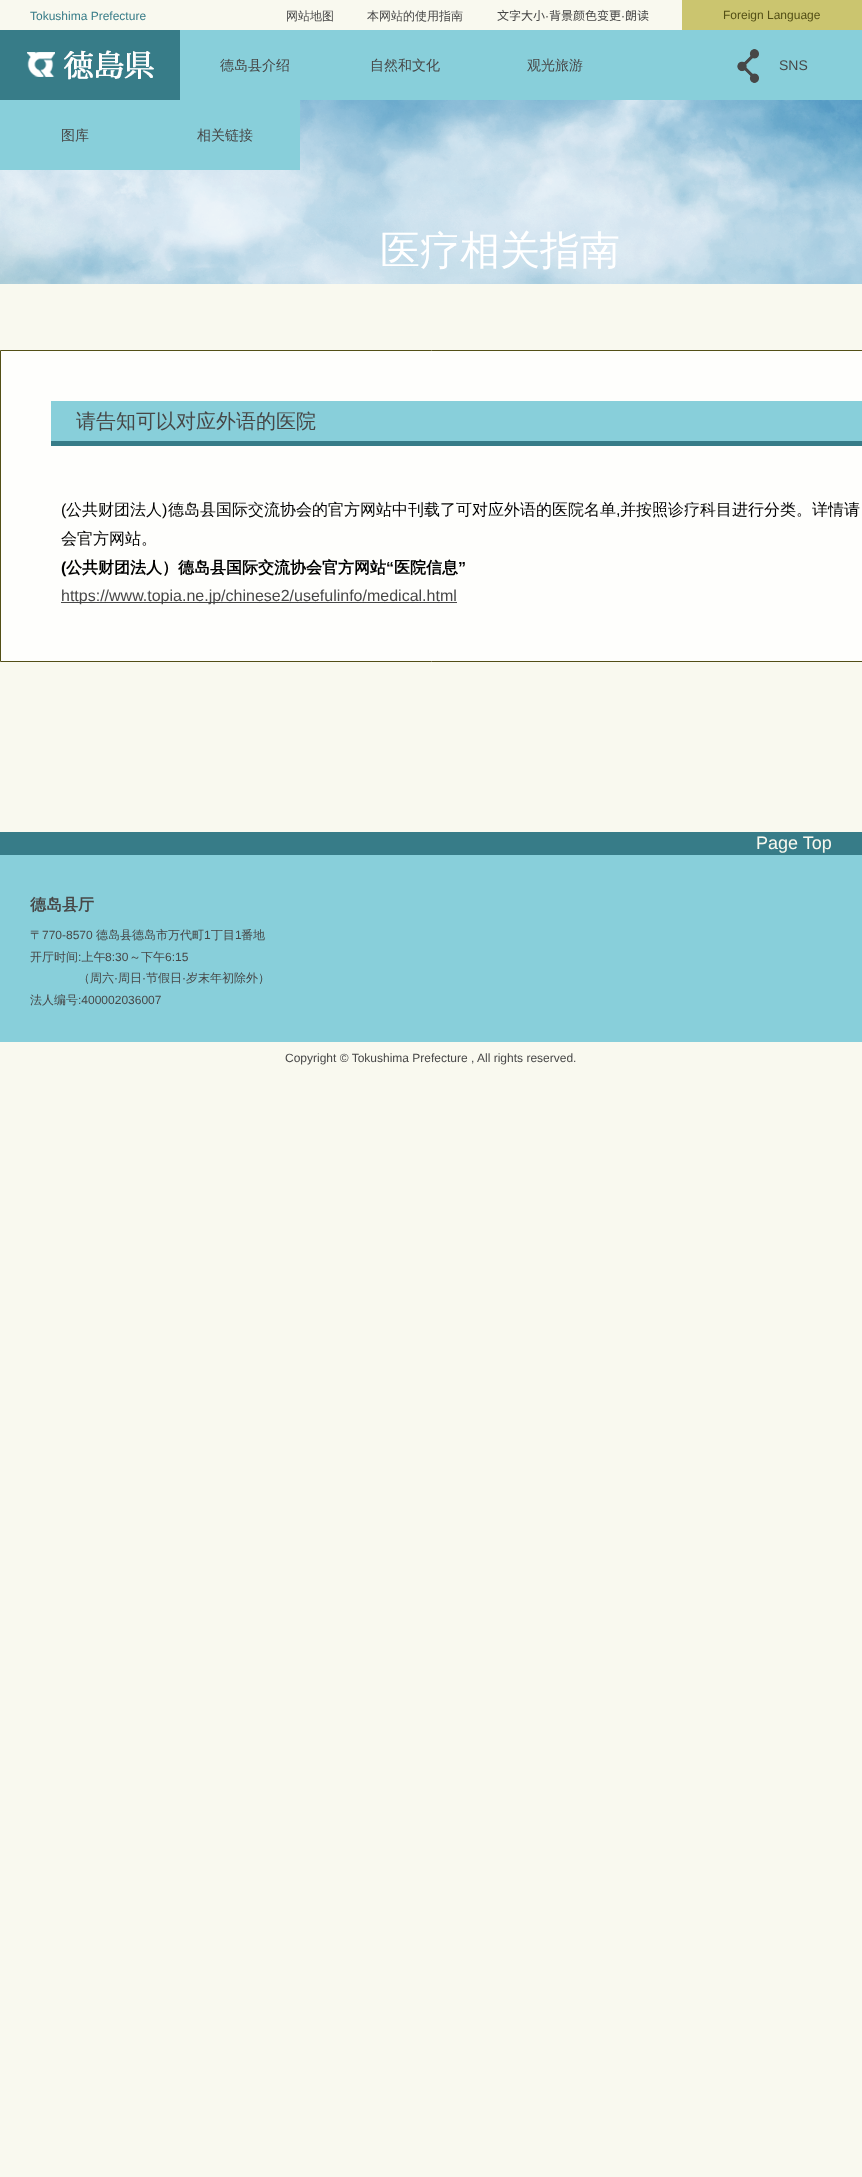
(async () => {
    const canvas = document.querySelector("canvas");
    canvas.width = 862;
    canvas.height = 2177;
    const context = canvas.getContext("2d");
    context.miterLimit = 4;
    context.fontKerning = "normal";
    function write(s, x, y, font, color) {
        context.font = font;
        context.fillStyle = color;
        context.fillText(s, x, y);
    }
    function block(x, y, w, h, color) {
        context.fillStyle = color;
        context.fillRect(x, y, w, h);
    }
    async function photo(src, x, y, w, h) {
        const img = new Image();
        img.src = src;
        await img.decode();
        context.drawImage(img, x, y, w, h);
    }

    block(0, 0, 862, 2177, "rgb(249, 249, 239)");
    await photo("media/1.png", 0, 100, 862, 184);
    write("Tokushima Prefecture", 30, 20, "12px Liberation Sans", "rgb(55, 124, 136)");
    write("网站地图", 286, 20, "500 12px WenQuanYi Zen Hei", "rgb(71, 71, 71)");
    write("本网站的使用指南", 367, 20, "500 12px WenQuanYi Zen Hei", "rgb(71, 71, 71)");
    write("文字大小", 497, 20, "12px Noto Sans CJK SC", "rgb(71, 71, 71)");
    write("·", 545, 20, "12px Liberation Sans", "rgb(71, 71, 71)");
    write("背景颜色变更", 549, 20, "12px Noto Sans CJK SC", "rgb(71, 71, 71)");
    write("·", 621, 20, "12px Liberation Sans", "rgb(71, 71, 71)");
    write("朗读", 625, 20, "12px Noto Sans CJK SC", "rgb(71, 71, 71)");
    block(682, 0, 180, 30, "rgb(203, 197, 111)");
    write("Foreign Language", 723, 19, "12px Liberation Sans", "rgb(83, 79, 22)");
    block(180, 30, 682, 70, "rgb(136, 207, 218)");
    await photo("media/2.png", 0, 30, 180, 70);
    write("德岛县介绍", 220, 70, "500 14px WenQuanYi Zen Hei", "rgb(71, 71, 71)");
    write("自然和文化", 370, 70, "500 14px WenQuanYi Zen Hei", "rgb(71, 71, 71)");
    write("观光旅游", 527, 70, "500 14px WenQuanYi Zen Hei", "rgb(71, 71, 71)");
    await photo("media/3.png", 737, 49, 22, 34);
    write("SNS", 779, 70, "14px Liberation Sans", "rgb(71, 71, 71)");
    block(0, 100, 300, 70, "rgb(136, 207, 218)");
    write("图库", 61, 140, "500 14px WenQuanYi Zen Hei", "rgb(71, 71, 71)");
    write("相关链接", 197, 140, "500 14px WenQuanYi Zen Hei", "rgb(71, 71, 71)");
    write("医疗相关指南", 380, 264, "500 40px WenQuanYi Zen Hei", "rgb(255, 255, 255)");
    context.fillStyle = "rgb(254, 254, 252)";
    context.beginPath();
    context.rect(0.5, 350.5, 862, 311);
    context.fill();
    context.strokeStyle = "rgb(83, 79, 22)";
    context.stroke();
    block(51, 401, 811, 40, "rgb(136, 207, 218)");
    block(51, 441, 811, 5, "rgb(55, 124, 136)");
    write("请告知可以对应外语的医院", 76, 428, "500 20px WenQuanYi Zen Hei", "rgb(71, 71, 71)");
    write("(", 61, 515, "16px Liberation Sans", "rgb(0, 0, 0)");
    write("公共财团法人", 66, 515, "500 16px WenQuanYi Zen Hei", "rgb(0, 0, 0)");
    write(")", 162, 515, "16px Liberation Sans", "rgb(0, 0, 0)");
    write("德岛县国际交流协会的官方网站中刊载了可对应外语的医院名单", 168, 515, "500 16px WenQuanYi Zen Hei", "rgb(0, 0, 0)");
    write(",", 616, 515, "16px Liberation Sans", "rgb(0, 0, 0)");
    write("并按照诊疗科目进行分类。详情请", 620, 515, "500 16px WenQuanYi Zen Hei", "rgb(0, 0, 0)");
    write("会官方网站。", 61, 544, "500 16px WenQuanYi Zen Hei", "rgb(0, 0, 0)");
    write("(", 61, 573, "bold 16px Liberation Sans", "rgb(0, 0, 0)");
    write("公共财团法人）德岛县国际交流协会官方网站", 66, 573, "bold 16px WenQuanYi Zen Hei", "rgb(0, 0, 0)");
    write("“", 386, 573, "bold 16px Liberation Sans", "rgb(0, 0, 0)");
    write("医院信息", 394, 573, "bold 16px WenQuanYi Zen Hei", "rgb(0, 0, 0)");
    write("”", 458, 573, "bold 16px Liberation Sans", "rgb(0, 0, 0)");
    block(61, 602, 396, 1, "rgb(71, 71, 71)");
    write("https://www.topia.ne.jp/chinese2/usefulinfo/medical.html", 61, 601, "16px Liberation Sans", "rgb(71, 71, 71)");
    block(0, 832, 862, 23, "rgb(55, 124, 136)");
    write("Page Top", 756, 849, "18px Liberation Sans", "rgb(249, 249, 239)");
    block(0, 855, 862, 187, "rgb(136, 207, 218)");
    write("德岛县厅", 30, 910, "bold 16px WenQuanYi Zen Hei", "rgb(71, 71, 71)");
    write("〒", 30, 939, "500 12px WenQuanYi Zen Hei", "rgb(71, 71, 71)");
    write("770-8570", 42, 939, "12px Liberation Sans", "rgb(71, 71, 71)");
    write("德岛县德岛市万代町", 96, 939, "500 12px WenQuanYi Zen Hei", "rgb(71, 71, 71)");
    write("1", 204, 939, "12px Liberation Sans", "rgb(71, 71, 71)");
    write("丁目", 211, 939, "500 12px WenQuanYi Zen Hei", "rgb(71, 71, 71)");
    write("1", 235, 939, "12px Liberation Sans", "rgb(71, 71, 71)");
    write("番地", 241, 939, "500 12px WenQuanYi Zen Hei", "rgb(71, 71, 71)");
    write("开厅时间 上午", 30, 961, "500 12px WenQuanYi Zen Hei", "rgb(71, 71, 71)");
    write("8:30", 105, 961, "12px Liberation Sans", "rgb(71, 71, 71)");
    write("～下午", 129, 961, "500 12px WenQuanYi Zen Hei", "rgb(71, 71, 71)");
    write("6:15", 165, 961, "12px Liberation Sans", "rgb(71, 71, 71)");
    write(":", 78, 961, "12px Liberation Sans", "rgb(71, 71, 71)");
    write("（周六", 78, 982, "500 12px WenQuanYi Zen Hei", "rgb(71, 71, 71)");
    write("·", 114, 982, "12px Liberation Sans", "rgb(71, 71, 71)");
    write("周日", 118, 982, "500 12px WenQuanYi Zen Hei", "rgb(71, 71, 71)");
    write("·", 142, 982, "12px Liberation Sans", "rgb(71, 71, 71)");
    write("节假日", 146, 982, "500 12px WenQuanYi Zen Hei", "rgb(71, 71, 71)");
    write("·", 182, 982, "12px Liberation Sans", "rgb(71, 71, 71)");
    write("岁末年初除外）", 186, 982, "500 12px WenQuanYi Zen Hei", "rgb(71, 71, 71)");
    write("法人编号", 30, 1004, "500 12px WenQuanYi Zen Hei", "rgb(71, 71, 71)");
    write(":400002036007", 78, 1004, "12px Liberation Sans", "rgb(71, 71, 71)");
    write("Copyright © Tokushima Prefecture , All rights reserved.", 285, 1062, "12px Liberation Sans", "rgb(71, 71, 71)");
})();
